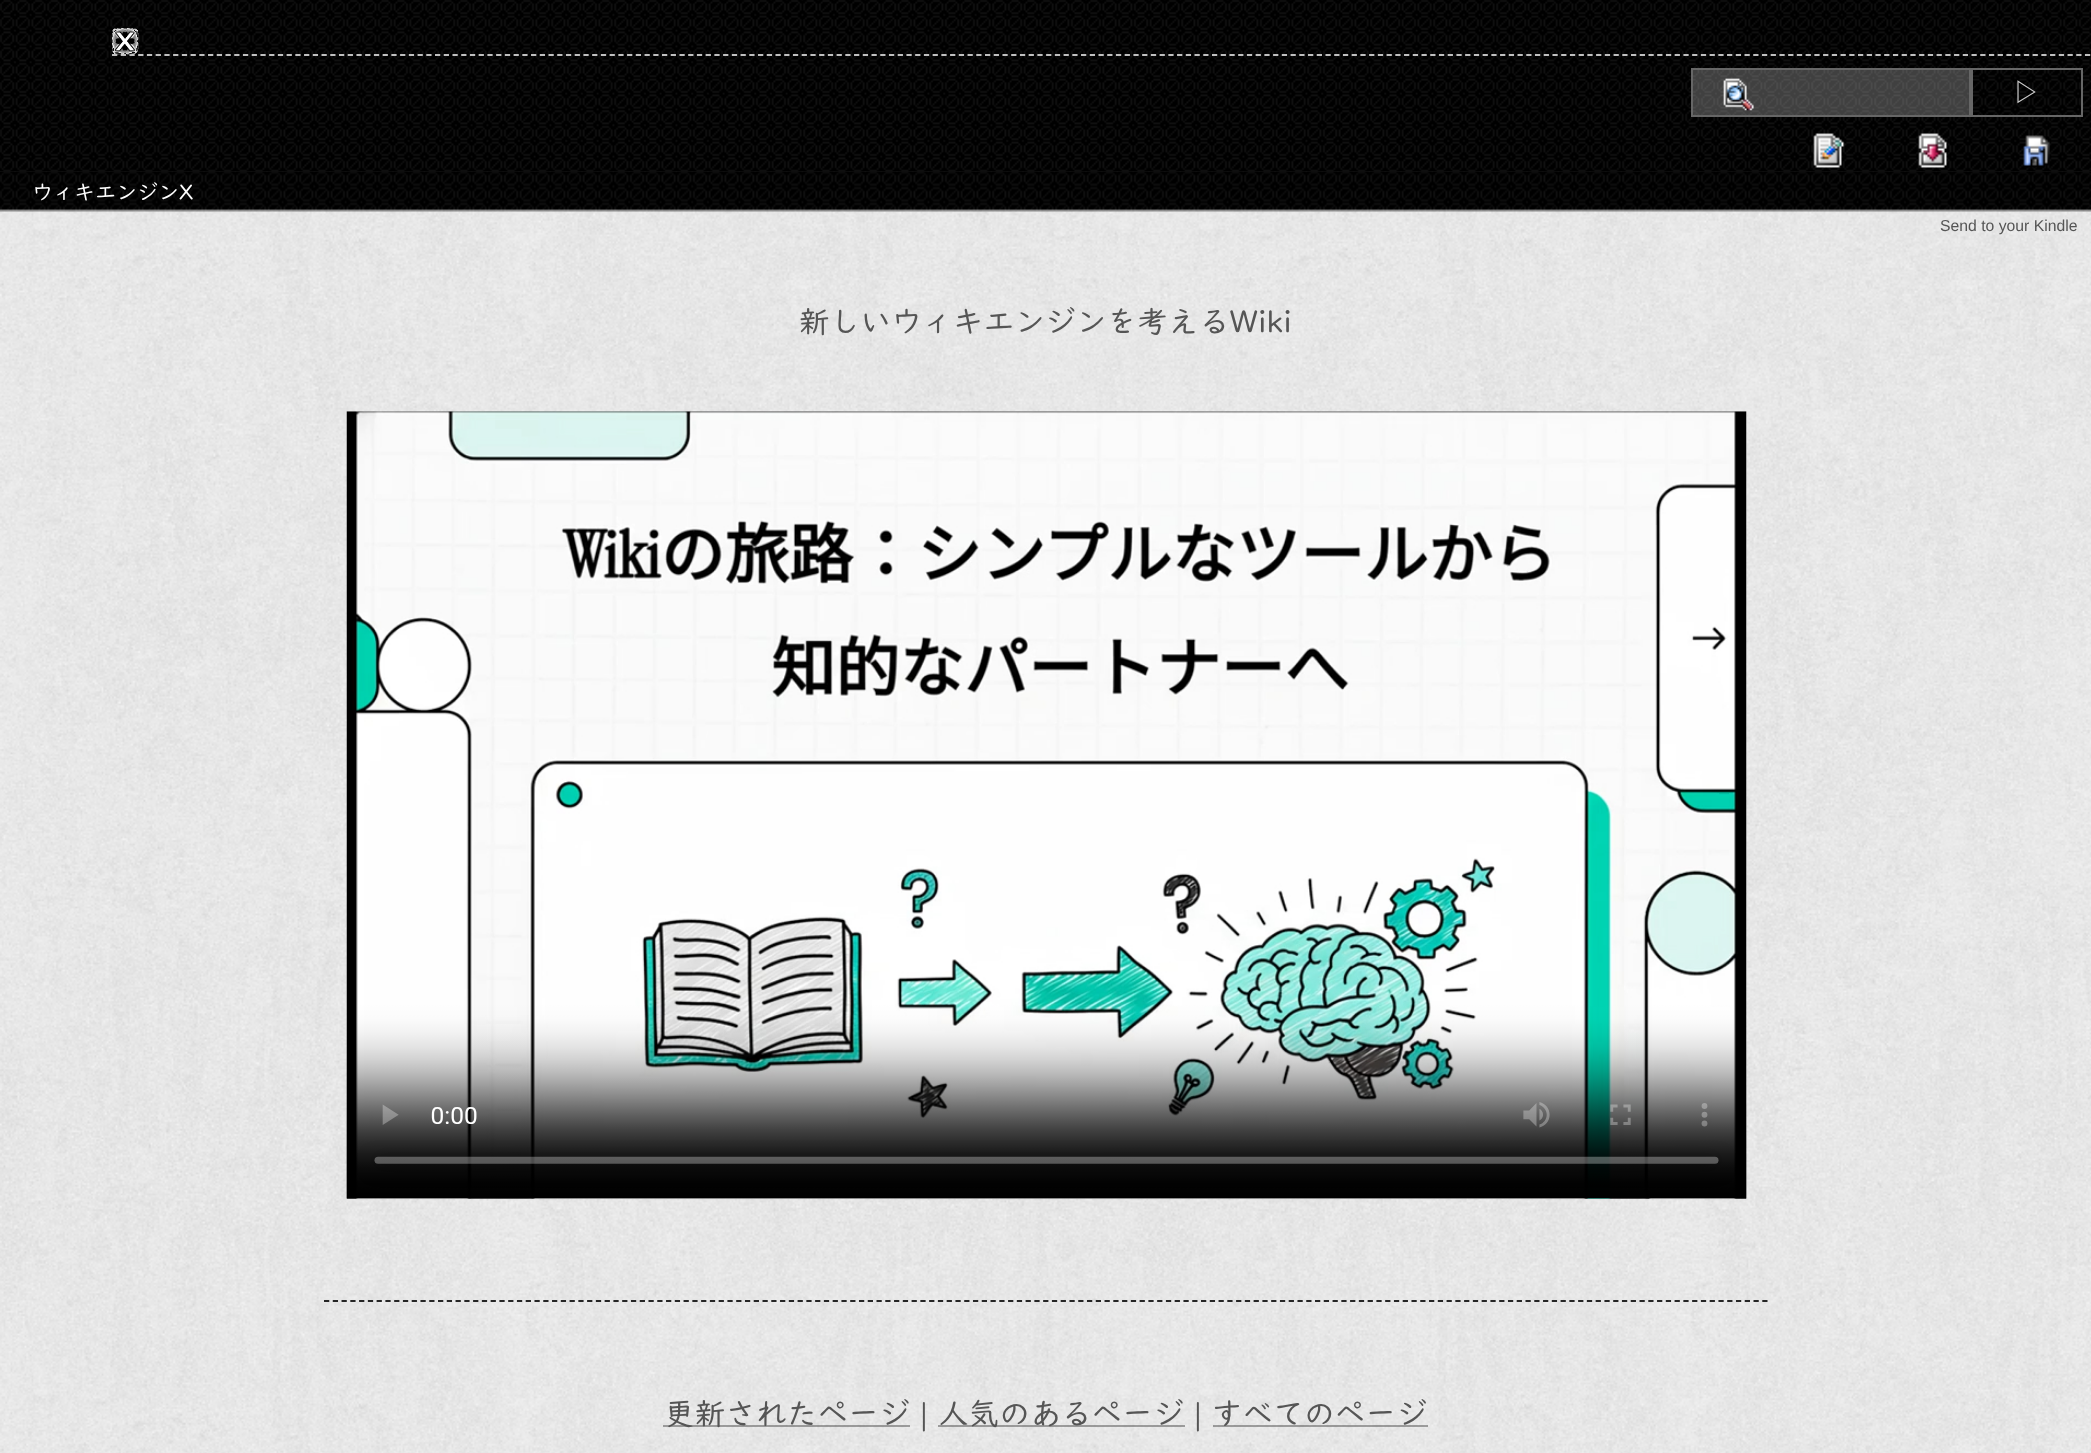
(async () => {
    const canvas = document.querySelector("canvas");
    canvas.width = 2091;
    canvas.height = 1453;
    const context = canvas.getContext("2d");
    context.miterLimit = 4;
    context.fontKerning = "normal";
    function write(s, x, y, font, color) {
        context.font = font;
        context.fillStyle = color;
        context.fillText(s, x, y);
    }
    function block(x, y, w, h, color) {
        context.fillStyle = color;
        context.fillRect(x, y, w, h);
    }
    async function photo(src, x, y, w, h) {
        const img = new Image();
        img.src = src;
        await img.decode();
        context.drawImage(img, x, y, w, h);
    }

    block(0, 0, 2091, 1453, "rgb(255, 255, 255)");
    await photo("media/1.png", 0, 209, 2091, 1244);
    block(0, 171, 2091, 1, "rgb(20, 20, 20)");
    await photo("media/2.png", 0, 0, 2091, 172);
    context.beginPath();
    context.moveTo(112, 55);
    context.lineTo(2091, 55);
    context.strokeStyle = "rgb(192, 192, 192)";
    context.lineWidth = 1.8;
    context.setLineDash([5.25, 3.48]);
    context.stroke();
    await photo("media/3.png", 112, 28, 27, 27);
    block(1693, 70, 276, 45, "rgba(255, 255, 255, 0.25)");
    await photo("media/4.png", 1723, 78, 31, 33);
    context.strokeStyle = "rgb(102, 102, 102)";
    context.lineWidth = 2;
    context.setLineDash([]);
    context.strokeRect(1692, 69, 278, 47);
    context.strokeRect(1972, 69, 110, 47);
    write("▷", 2013, 102, "500 28px WenQuanYi Zen Hei", "rgb(204, 204, 204)");
    await photo("media/5.png", 1813, 133, 32, 35);
    await photo("media/6.png", 1918, 133, 29, 35);
    await photo("media/7.png", 2023, 135, 27, 33);
    block(0, 210, 2091, 2, "rgba(48, 48, 48, 0.25)");
    await photo("media/8.png", 0, 172, 2091, 39);
    write("ウィキエンジンX", 32, 200, "21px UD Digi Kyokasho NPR", "rgb(255, 255, 255)");
    write("Send to your Kindle", 1940, 231, "15.75px Liberation Sans", "rgb(85, 85, 85)");
    write("新しいウィキエンジンを考えるWiki", 799, 333, "30.75px UD Digi Kyokasho NPR", "rgb(85, 85, 85)");
    await photo("media/9.png", 346, 411, 1401, 788);
    context.beginPath();
    context.moveTo(324, 1301);
    context.lineTo(1767.5, 1301);
    context.strokeStyle = "rgb(37, 37, 37)";
    context.lineWidth = 1.8;
    context.setLineDash([5.25, 3.52]);
    context.stroke();
    block(663, 1425, 247, 2, "rgba(85, 85, 85, 0.53)");
    write("更新されたページ |", 664, 1425, "30.75px UD Digi Kyokasho NPR", "rgb(85, 85, 85)");
    block(938, 1425, 247, 2, "rgba(85, 85, 85, 0.53)");
    write("人気のあるページ |", 938, 1425, "30.75px UD Digi Kyokasho NPR", "rgb(85, 85, 85)");
    block(1213, 1425, 215, 2, "rgba(85, 85, 85, 0.53)");
    write("すべてのページ", 1212, 1425, "30.75px UD Digi Kyokasho NPR", "rgb(85, 85, 85)");
})();
